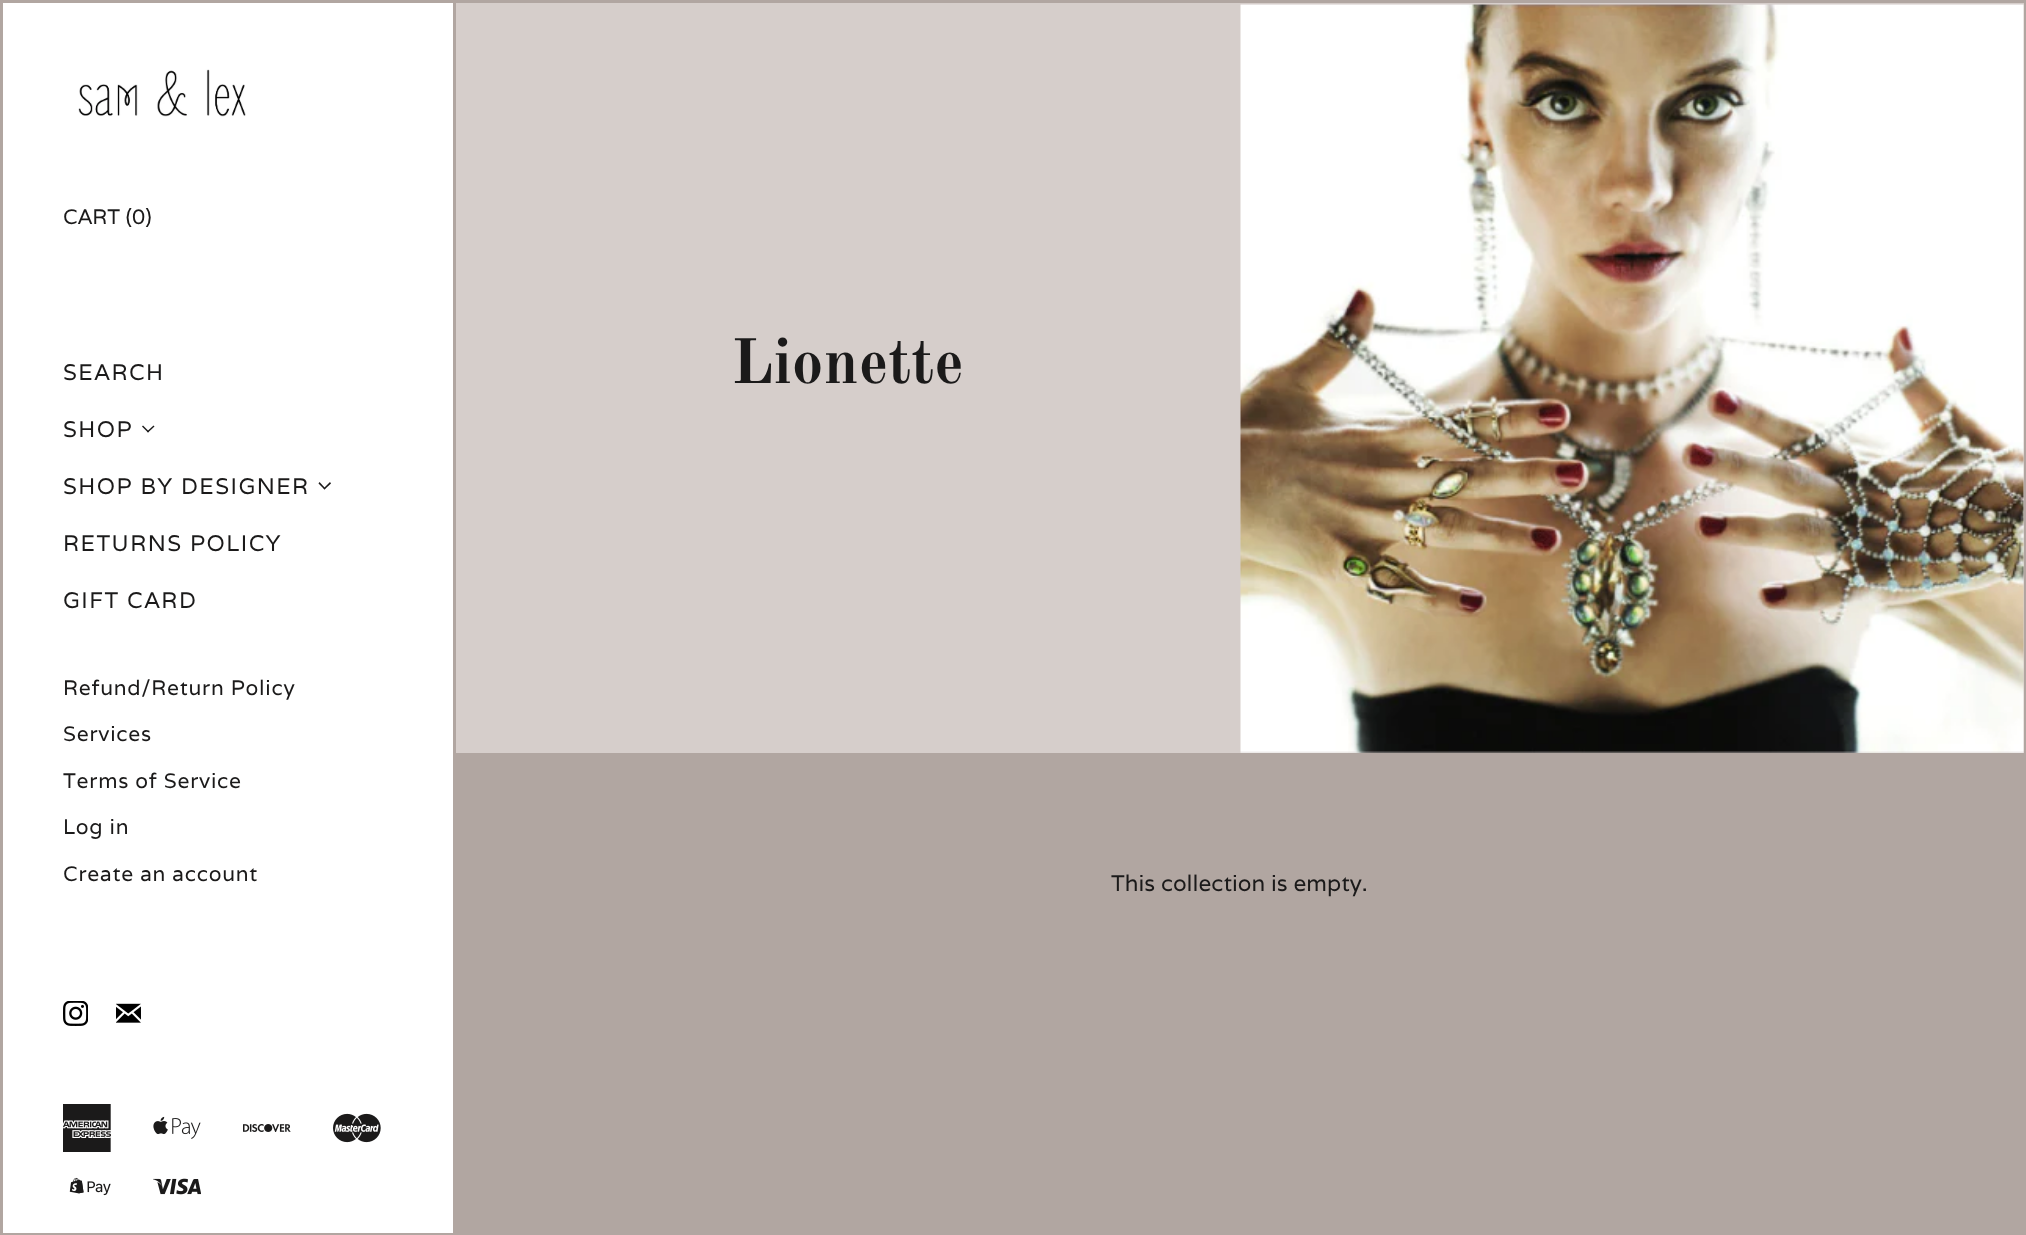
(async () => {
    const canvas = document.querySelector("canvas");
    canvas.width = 2026;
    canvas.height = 1235;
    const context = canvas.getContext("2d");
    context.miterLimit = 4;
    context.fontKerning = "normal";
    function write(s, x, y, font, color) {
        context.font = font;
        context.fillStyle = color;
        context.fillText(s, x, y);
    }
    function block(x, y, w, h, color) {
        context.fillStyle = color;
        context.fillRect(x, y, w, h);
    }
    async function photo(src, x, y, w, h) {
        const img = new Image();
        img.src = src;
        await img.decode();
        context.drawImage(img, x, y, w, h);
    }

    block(0, 0, 2026, 1235, "rgb(177, 166, 161)");
    block(3, 3, 450, 1230, "rgb(255, 255, 255)");
    await photo("media/1.png", 78, 69, 168, 48);
    write("CART (0)", 63, 224, "21px Varela", "rgb(27, 26, 26)");
    context.letterSpacing = "1.5px";
    write("SEARCH", 63, 380, "22.5px Varela", "rgb(27, 26, 26)");
    write("SHOP", 63, 437, "22.5px Varela", "rgb(27, 26, 26)");
    context.beginPath();
    context.moveTo(154.5, 426.5);
    context.lineTo(148, 432.5);
    context.lineTo(147, 431.5);
    context.lineTo(153.5, 425.5);
    context.closePath();
    context.fill();
    context.beginPath();
    context.moveTo(149, 431.5);
    context.lineTo(148, 432.5);
    context.lineTo(142, 426.5);
    context.lineTo(143, 425.5);
    context.closePath();
    context.fill();
    write("SHOP BY DESIGNER", 63, 494, "22.5px Varela", "rgb(27, 26, 26)");
    context.beginPath();
    context.moveTo(331, 483.5);
    context.lineTo(324.5, 489.5);
    context.lineTo(323.5, 488.5);
    context.lineTo(330, 482);
    context.closePath();
    context.fill();
    context.beginPath();
    context.moveTo(325.5, 488.5);
    context.lineTo(324.5, 489.5);
    context.lineTo(318.5, 483.5);
    context.lineTo(319.5, 482);
    context.closePath();
    context.fill();
    write("RETURNS POLICY", 63, 551, "22.5px Varela", "rgb(27, 26, 26)");
    write("GIFT CARD", 63, 608, "22.5px Varela", "rgb(27, 26, 26)");
    context.letterSpacing = "0.75px";
    write("Refund/Return Policy", 63, 695, "21px Varela", "rgb(27, 26, 26)");
    write("Services", 63, 741, "21px Varela", "rgb(27, 26, 26)");
    write("Terms of Service", 63, 788, "21px Varela", "rgb(27, 26, 26)");
    write("Log in", 63, 834, "21px Varela", "rgb(27, 26, 26)");
    write("Create an account", 63, 881, "21px Varela", "rgb(27, 26, 26)");
    await photo("media/2.png", 63, 1001, 25, 25);
    await photo("media/3.png", 116, 1003, 25, 20);
    await photo("media/4.png", 63, 1104, 48, 48);
    await photo("media/5.png", 153, 1116, 48, 23);
    await photo("media/6.png", 243, 1124, 48, 8);
    await photo("media/7.png", 333, 1113, 48, 30);
    await photo("media/8.png", 69, 1177, 42, 19);
    await photo("media/9.png", 153, 1178, 48, 17);
    block(456, 3, 1568, 750, "rgb(214, 206, 203)");
    context.letterSpacing = "0px";
    write("Lionette", 731, 383, "bold 63px Old Standard TT", "rgb(27, 26, 26)");
    await photo("media/10.png", 1240, 4, 784, 749);
    write("This collection is empty.", 1111, 891, "22.5px Varela", "rgb(27, 26, 26)");
})();
